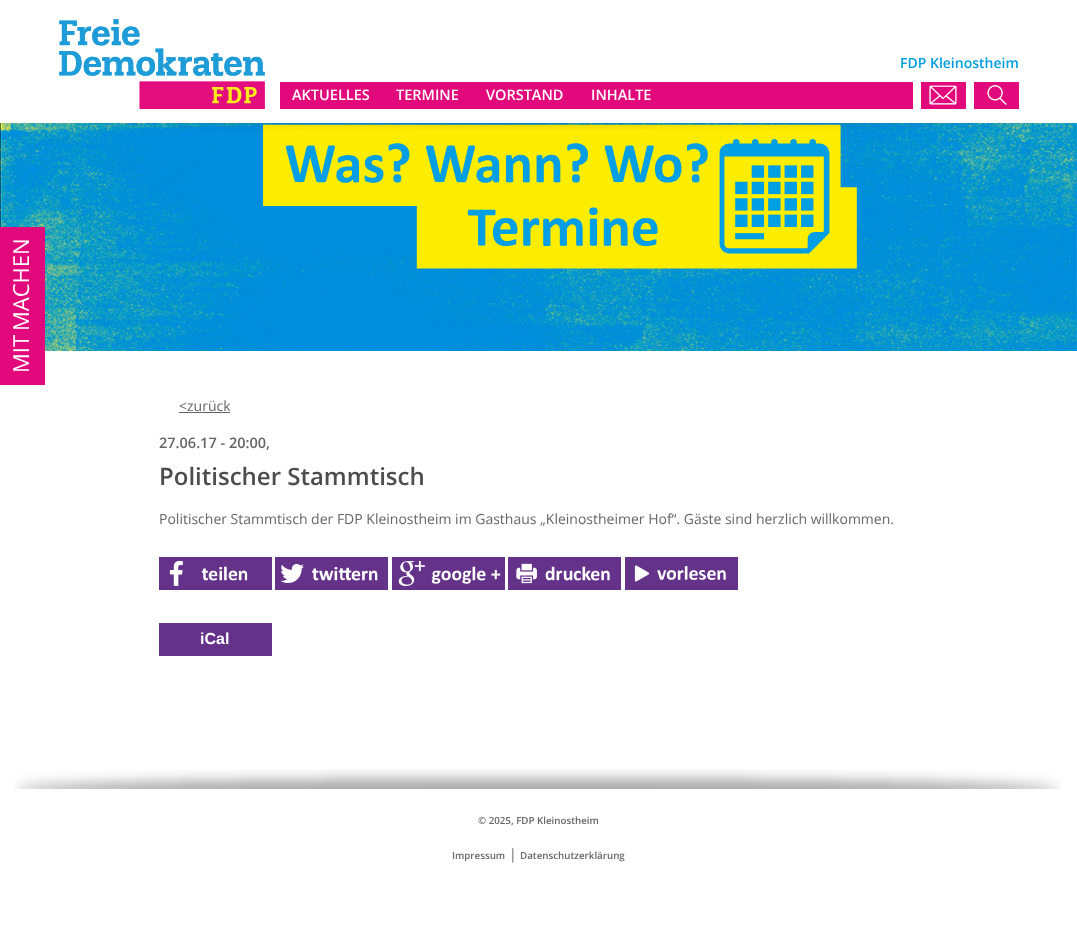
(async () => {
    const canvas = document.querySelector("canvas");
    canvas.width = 1077;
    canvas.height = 929;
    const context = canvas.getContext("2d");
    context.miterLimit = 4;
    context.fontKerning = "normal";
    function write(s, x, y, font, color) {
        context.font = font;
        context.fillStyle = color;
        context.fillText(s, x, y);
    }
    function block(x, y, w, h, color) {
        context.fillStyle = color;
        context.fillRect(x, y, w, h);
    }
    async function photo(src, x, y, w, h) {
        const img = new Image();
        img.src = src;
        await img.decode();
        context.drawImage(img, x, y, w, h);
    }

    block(0, 0, 1077, 929, "rgb(255, 255, 255)");
    await photo("media/1.png", 59, 19, 206, 90);
    write("FDP Kleinostheim", 900, 68, "600 14px Open Sans", "rgb(0, 158, 226)");
    block(280, 82, 633, 27, "rgb(226, 9, 125)");
    write("AKTUELLES", 292, 100, "600 14.5px Open Sans", "rgb(255, 255, 255)");
    write("TERMINE", 396, 100, "600 14.5px Open Sans", "rgb(255, 255, 255)");
    write("VORSTAND", 486, 100, "600 14.5px Open Sans", "rgb(255, 255, 255)");
    write("INHALTE", 591, 100, "600 14.5px Open Sans", "rgb(255, 255, 255)");
    block(921, 82, 45, 27, "rgb(226, 9, 125)");
    await photo("media/2.png", 929, 85, 28, 20);
    block(974, 82, 45, 27, "rgb(226, 9, 125)");
    await photo("media/3.png", 987, 85, 20, 20);
    await photo("media/5.png", 0, 123, 1077, 228);
    await photo("media/6.png", 263, 124, 594, 145);
    await photo("media/4.png", 66, 123, 945, 7);
    block(0, 227, 45, 158, "rgb(226, 9, 125)");
    context.font = "22px Open Sans";
    context.fillStyle = "rgb(255, 255, 255)";
    context.save();
    context.translate(29, 331);
    context.rotate(-90 * Math.PI / 180);
    context.fillText("MACHEN", 0, 0);
    context.restore();
    context.save();
    context.translate(29, 373);
    context.rotate(-90 * Math.PI / 180);
    context.fillText("MIT", 0, 0);
    context.restore();
    write("<zurück", 179, 411, "14px Open Sans", "rgb(102, 102, 102)");
    block(179, 412, 51, 1, "rgb(102, 102, 102)");
    write("27.06.17 - 20:00,", 159, 448, "600 14.5px Open Sans", "rgb(102, 102, 102)");
    write("Politischer Stammtisch", 159, 485, "600 24px Open Sans", "rgb(78, 77, 77)");
    write("Politischer Stammtisch der FDP Kleinostheim im Gasthaus „Kleinostheimer Hof“. Gäste sind herzlich willkommen.", 159, 524, "14px Open Sans", "rgb(102, 102, 102)");
    await photo("media/7.png", 159, 557, 113, 33);
    await photo("media/8.png", 275, 557, 113, 33);
    await photo("media/9.png", 392, 557, 113, 33);
    await photo("media/10.png", 508, 557, 113, 33);
    await photo("media/11.png", 625, 557, 113, 33);
    block(159, 623, 113, 33, "rgb(101, 50, 138)");
    write("iCal", 200, 644, "bold 16px Liberation Sans", "rgb(255, 255, 255)");
    await photo("media/12.png", 14, 769, 1048, 20);
    write("© 2025, FDP Kleinostheim", 478, 824, "600 9.75px Open Sans", "rgb(102, 102, 102)");
    write("Impressum", 452, 859, "600 9.75px Open Sans", "rgb(102, 102, 102)");
    write("|", 509, 859, "14px Open Sans", "rgb(102, 102, 102)");
    write("Datenschutzerklärung", 520, 859, "600 9.75px Open Sans", "rgb(102, 102, 102)");
})();
